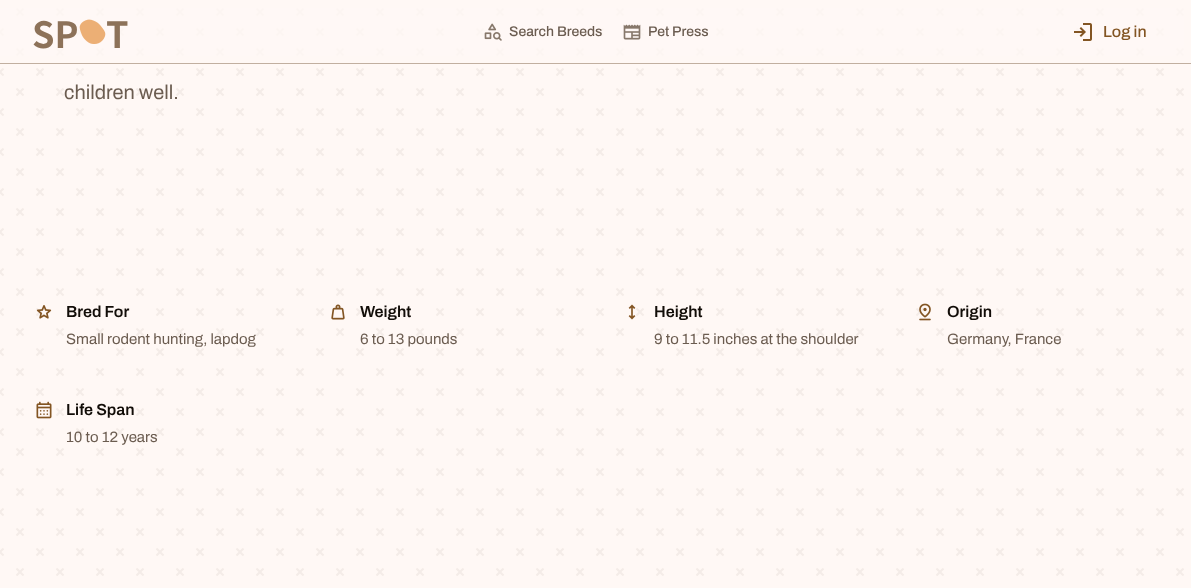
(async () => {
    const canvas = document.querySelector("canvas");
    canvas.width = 1191;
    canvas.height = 588;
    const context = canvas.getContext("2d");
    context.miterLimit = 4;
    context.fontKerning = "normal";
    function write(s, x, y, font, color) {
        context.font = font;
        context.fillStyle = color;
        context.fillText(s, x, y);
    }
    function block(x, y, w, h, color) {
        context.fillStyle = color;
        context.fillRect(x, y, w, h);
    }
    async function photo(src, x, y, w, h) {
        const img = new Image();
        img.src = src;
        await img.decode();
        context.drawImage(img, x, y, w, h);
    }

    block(0, 0, 1191, 588, "rgb(255, 248, 245)");
    await photo("media/1.png", 0, 8, 1184, 568);
    block(0, 8, 1184, 48, "rgba(255, 248, 245, 0.75)");
    block(0, 63, 1191, 1, "rgb(193, 175, 160)");
    write("SP", 32, 48, "bold 36px Noto Sans TC", "rgb(141, 114, 89)");
    await photo("media/2.png", 79, 19, 27, 25);
    write("T", 106, 48, "bold 36px Noto Sans TC", "rgb(141, 114, 89)");
    await photo("media/3.png", 484, 23, 18, 18);
    write("Search Breeds", 509, 36, "500 14px Archivo", "rgb(107, 92, 80)");
    await photo("media/4.png", 623, 24, 18, 16);
    write("Pet Press", 648, 36, "500 14px Archivo", "rgb(107, 92, 80)");
    await photo("media/5.png", 1074, 23, 18, 18);
    write("Log in", 1103, 37, "500 16px Archivo", "rgb(131, 85, 35)");
    write("children well.", 64, 99, "20px Archivo", "rgb(107, 92, 80)");
    await photo("media/6.png", 36, 305, 16, 14);
    write("Bred For", 66, 317, "600 16px Archivo", "rgb(18, 13, 8)");
    write("Small rodent hunting, lapdog", 66, 344, "15px Archivo", "rgb(107, 92, 80)");
    await photo("media/7.png", 331, 304, 14, 16);
    write("Weight", 360, 317, "600 16px Archivo", "rgb(18, 13, 8)");
    write("6 to 13 pounds", 360, 344, "15px Archivo", "rgb(107, 92, 80)");
    await photo("media/8.png", 628, 304, 8, 16);
    write("Height", 654, 317, "600 16px Archivo", "rgb(18, 13, 8)");
    write("9 to 11.5 inches at the shoulder", 654, 344, "15px Archivo", "rgb(107, 92, 80)");
    await photo("media/9.png", 919, 303, 12, 18);
    write("Origin", 947, 317, "600 16px Archivo", "rgb(18, 13, 8)");
    write("Germany, France", 947, 344, "15px Archivo", "rgb(107, 92, 80)");
    await photo("media/10.png", 36, 401, 16, 18);
    write("Life Span", 66, 415, "600 16px Archivo", "rgb(18, 13, 8)");
    write("10 to 12 years", 66, 442, "15px Archivo", "rgb(107, 92, 80)");
})();
